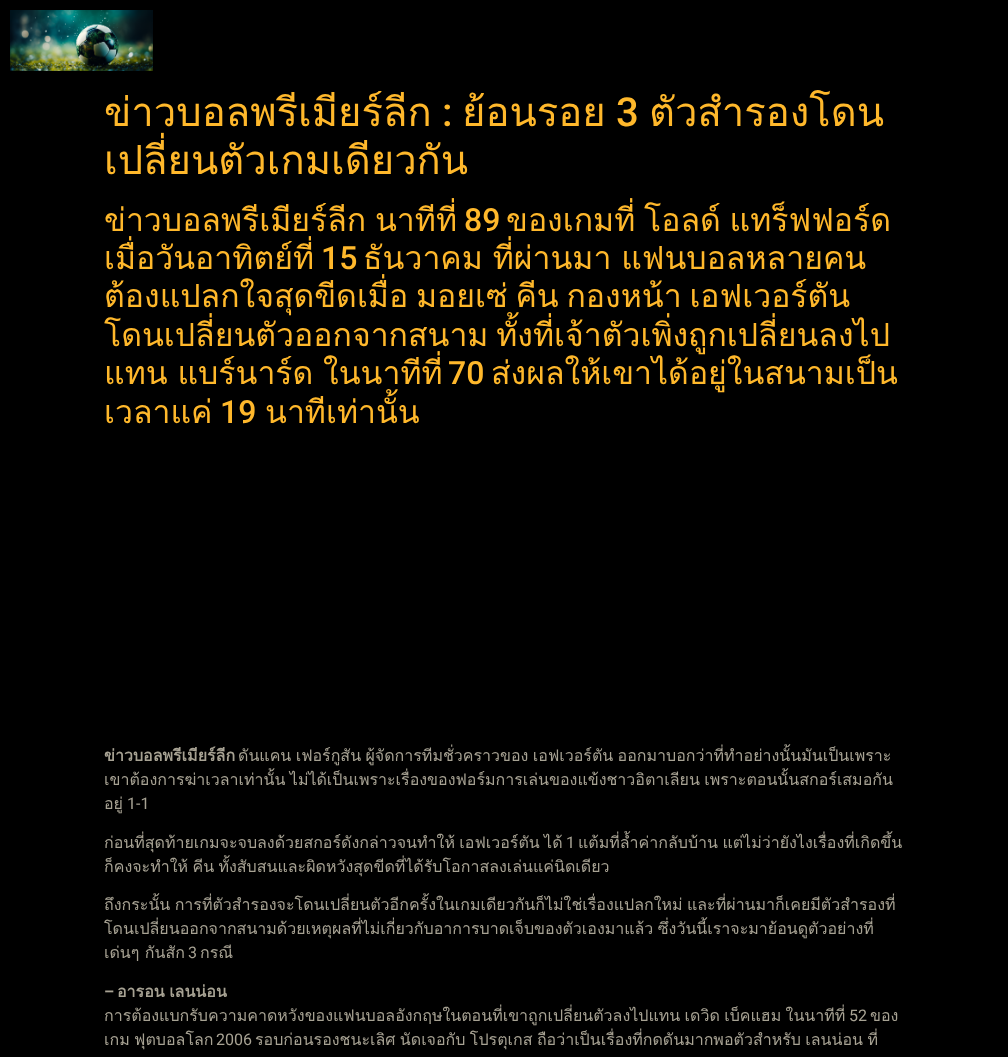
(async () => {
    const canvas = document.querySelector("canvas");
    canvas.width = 1008;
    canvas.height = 1057;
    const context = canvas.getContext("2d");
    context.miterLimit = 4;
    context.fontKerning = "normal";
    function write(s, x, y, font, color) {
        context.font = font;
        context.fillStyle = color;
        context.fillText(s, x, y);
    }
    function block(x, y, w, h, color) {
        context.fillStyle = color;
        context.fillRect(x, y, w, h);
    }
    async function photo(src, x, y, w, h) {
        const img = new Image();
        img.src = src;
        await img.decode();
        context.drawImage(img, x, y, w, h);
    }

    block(0, 0, 1008, 1057, "rgb(0, 0, 0)");
    await photo("media/1.png", 10, 10, 143, 61);
    write("ข่าวบอลพรีเมียร์ลีก", 104, 126, "40px Loma", "rgb(255, 184, 43)");
    write(":", 442, 126, "500 40px Roboto", "rgb(255, 184, 43)");
    write("ย้อนรอย", 462, 126, "40px Loma", "rgb(255, 184, 43)");
    write("3", 616, 126, "500 40px Roboto", "rgb(255, 184, 43)");
    write("ตัวสำรองโดน", 649, 126, "40px Loma", "rgb(255, 184, 43)");
    write("เปลี่ยนตัวเกมเดียวกัน", 104, 174, "40px Loma", "rgb(255, 184, 43)");
    context.wordSpacing = "-2px";
    write("ข่าวบอลพรีเมียร์ลีก นาทีที่", 104, 231, "32px Loma", "rgb(255, 184, 43)");
    context.wordSpacing = "0px";
    write("89", 464, 231, "500 32px Roboto", "rgb(255, 184, 43)");
    context.wordSpacing = "-2px";
    write("ของเกมที่ โอลด์ แทร็ฟฟอร์ด", 506, 231, "32px Loma", "rgb(255, 184, 43)");
    context.wordSpacing = "0px";
    write("เมื่อวันอาทิตย์ที่", 104, 269, "32px Loma", "rgb(255, 184, 43)");
    write("15", 321, 269, "500 32px Roboto", "rgb(255, 184, 43)");
    context.wordSpacing = "-1px";
    write("ธันวาคม ที่ผ่านมา แฟนบอลหลายคน", 363, 269, "32px Loma", "rgb(255, 184, 43)");
    context.wordSpacing = "-3px";
    write("ต้องแปลกใจสุดขีดเมื่อ มอยเซ่ คีน กองหน้า เอฟเวอร์ตัน", 104, 307, "32px Loma", "rgb(255, 184, 43)");
    write("โดนเปลี่ยนตัวออกจากสนาม ทั้งที่เจ้าตัวเพิ่งถูกเปลี่ยนลงไป", 104, 346, "32px Loma", "rgb(255, 184, 43)");
    context.wordSpacing = "-1px";
    write("แทน แบร์นาร์ด ในนาทีที่", 104, 384, "32px Loma", "rgb(255, 184, 43)");
    context.wordSpacing = "0px";
    write("70", 448, 384, "500 32px Roboto", "rgb(255, 184, 43)");
    write("ส่งผลให้เขาได้อยู่ในสนามเป็น", 491, 384, "32px Loma", "rgb(255, 184, 43)");
    write("เวลาแค่", 104, 423, "32px Loma", "rgb(255, 184, 43)");
    write("19", 220, 423, "500 32px Roboto", "rgb(255, 184, 43)");
    write("นาทีเท่านั้น", 265, 423, "32px Loma", "rgb(255, 184, 43)");
    write("ข่าวบอลพรีเมียร์ลีก", 104, 761, "bold 16px Loma", "rgb(167, 162, 147)");
    context.wordSpacing = "-1px";
    write("ดันแคน เฟอร์กูสัน ผู้จัดการทีมชั่วคราวของ เอฟเวอร์ตัน ออกมาบอกว่าที่ทำอย่างนั้นมันเป็นเพราะ", 238, 761, "16px Loma", "rgb(167, 162, 147)");
    write("เขาต้องการฆ่าเวลาเท่านั้น ไม่ได้เป็นเพราะเรื่องของฟอร์มการเล่นของแข้งชาวอิตาเลียน เพราะตอนนั้นสกอร์เสมอกัน", 104, 785, "16px Loma", "rgb(167, 162, 147)");
    context.wordSpacing = "0px";
    write("อยู่", 104, 809, "16px Loma", "rgb(167, 162, 147)");
    write("1-1", 127, 809, "16px Roboto", "rgb(167, 162, 147)");
    context.wordSpacing = "-1px";
    write("ก่อนที่สุดท้ายเกมจะจบลงด้วยสกอร์ดังกล่าวจนทำให้ เอฟเวอร์ตัน ได้", 104, 848, "16px Loma", "rgb(167, 162, 147)");
    context.wordSpacing = "0px";
    write("1", 566, 848, "16px Roboto", "rgb(167, 162, 147)");
    context.wordSpacing = "-1px";
    write("แต้มที่ล้ำค่ากลับบ้าน แต่ไม่ว่ายังไงเรื่องที่เกิดขึ้น", 578, 848, "16px Loma", "rgb(167, 162, 147)");
    write("ก็คงจะทำให้ คีน ทั้งสับสนและผิดหวังสุดขีดที่ได้รับโอกาสลงเล่นแค่นิดเดียว", 104, 872, "16px Loma", "rgb(167, 162, 147)");
    write("ถึงกระนั้น การที่ตัวสำรองจะโดนเปลี่ยนตัวอีกครั้งในเกมเดียวกันก็ไม่ใช่เรื่องแปลกใหม่ และที่ผ่านมาก็เคยมีตัวสำรองที่", 104, 910, "16px Loma", "rgb(167, 162, 147)");
    write("โดนเปลี่ยนออกจากสนามด้วยเหตุผลที่ไม่เกี่ยวกับอาการบาดเจ็บของตัวเองมาแล้ว ซึ่งวันนี้เราจะมาย้อนดูตัวอย่างที่", 104, 934, "16px Loma", "rgb(167, 162, 147)");
    context.wordSpacing = "0px";
    write("เด่นๆ กันสัก", 104, 958, "16px Loma", "rgb(167, 162, 147)");
    write("3", 188, 958, "16px Roboto", "rgb(167, 162, 147)");
    write("กรณี", 200, 958, "16px Loma", "rgb(167, 162, 147)");
    write("–", 104, 997, "bold 16px Roboto", "rgb(167, 162, 147)");
    context.wordSpacing = "-1px";
    write("อารอน เลนน่อน", 117, 997, "bold 16px Loma", "rgb(167, 162, 147)");
    write("การต้องแบกรับความคาดหวังของแฟนบอลอังกฤษในตอนที่เขาถูกเปลี่ยนตัวลงไปแทน เดวิด เบ็คแฮม ในนาทีที่", 104, 1021, "16px Loma", "rgb(167, 162, 147)");
    context.wordSpacing = "0px";
    write("52", 849, 1021, "16px Roboto", "rgb(167, 162, 147)");
    write("ของ", 870, 1021, "16px Loma", "rgb(167, 162, 147)");
    context.wordSpacing = "-1px";
    write("เกม ฟุตบอลโลก", 104, 1045, "16px Loma", "rgb(167, 162, 147)");
    context.wordSpacing = "0px";
    write("2006", 216, 1045, "16px Roboto", "rgb(167, 162, 147)");
    context.wordSpacing = "-1px";
    write("รอบก่อนรองชนะเลิศ นัดเจอกับ โปรตุเกส ถือว่าเป็นเรื่องที่กดดันมากพอตัวสำหรับ เลนน่อน ที่", 255, 1045, "16px Loma", "rgb(167, 162, 147)");
})();
